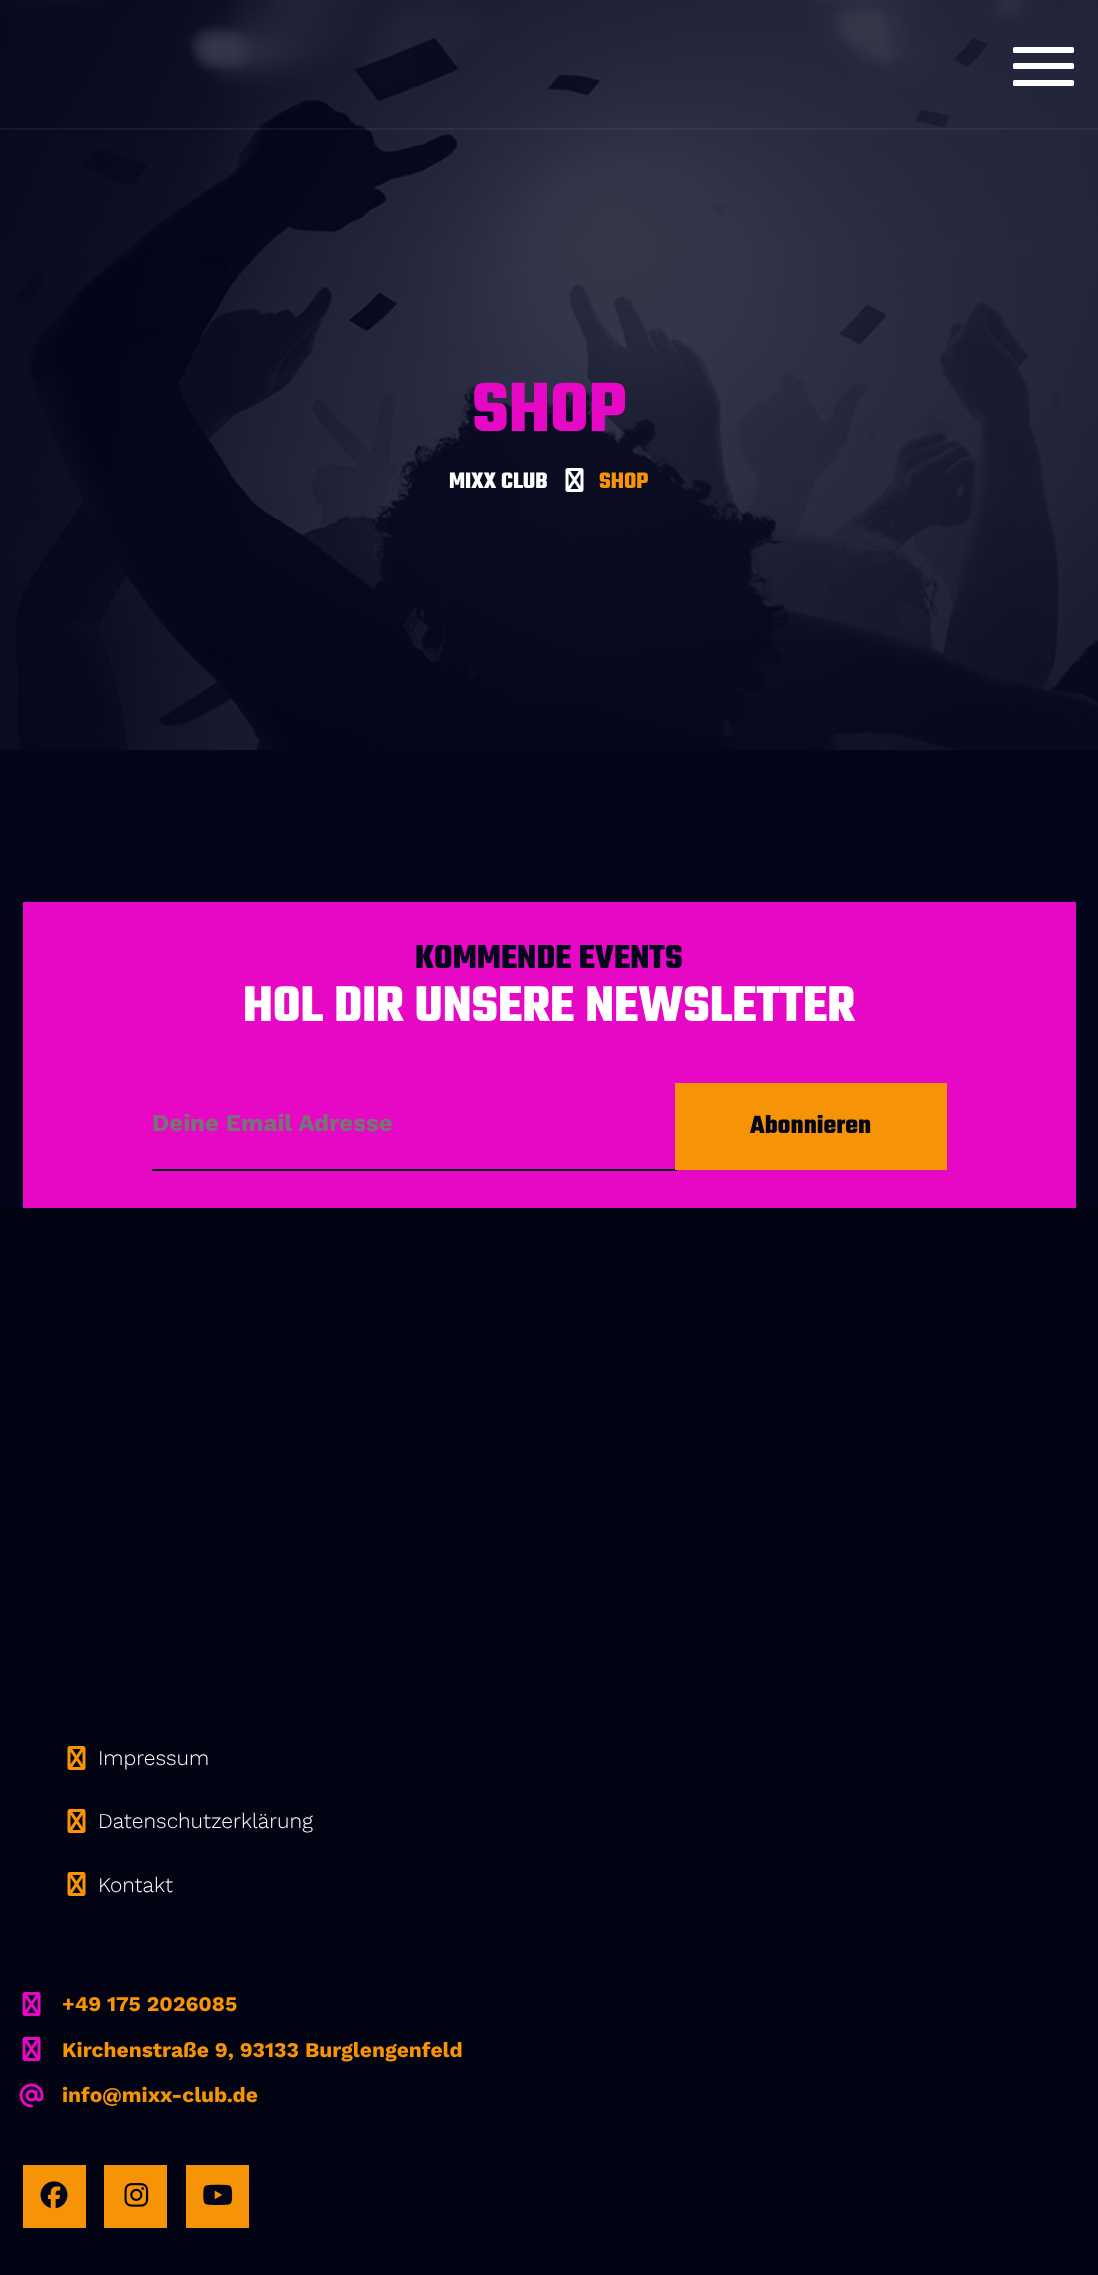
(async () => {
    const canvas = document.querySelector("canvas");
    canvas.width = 1098;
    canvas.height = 2275;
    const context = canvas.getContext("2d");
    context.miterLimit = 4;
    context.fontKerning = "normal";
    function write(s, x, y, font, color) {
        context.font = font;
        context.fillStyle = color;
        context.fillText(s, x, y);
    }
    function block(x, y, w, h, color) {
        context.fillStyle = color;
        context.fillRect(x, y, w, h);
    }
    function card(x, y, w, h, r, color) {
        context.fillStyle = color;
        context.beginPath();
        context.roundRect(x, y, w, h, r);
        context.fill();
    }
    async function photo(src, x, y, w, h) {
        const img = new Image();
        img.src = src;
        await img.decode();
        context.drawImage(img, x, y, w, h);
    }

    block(0, 0, 1098, 2275, "rgb(3, 5, 26)");
    await photo("media/1.png", 0, 0, 1098, 750);
    block(0, 128, 1098, 2, "rgba(255, 255, 255, 0.05)");
    card(1013, 47, 61, 6, 1.5, "rgb(255, 255, 255)");
    card(1013, 63, 61, 6, 1.5, "rgb(255, 255, 255)");
    card(1013, 80, 61, 6, 1.5, "rgb(255, 255, 255)");
    write("SHOP", 472, 431, "300 75px Teko", "rgb(231, 8, 197)");
    write("MIXX CLUB", 449, 488, "300 24px Teko", "rgb(255, 255, 255)");
    await photo("media/2.png", 565, 468, 19, 24);
    write("SHOP", 599, 488, "300 24px Teko", "rgb(247, 147, 7)");
    block(23, 902, 1053, 306, "rgb(231, 8, 197)");
    write("KOMMENDE EVENTS", 415, 968, "300 36px Teko", "rgb(3, 5, 26)");
    write("HOL DIR UNSERE NEWSLETTER", 243, 1021, "300 54px Teko", "rgb(255, 255, 255)");
    block(152, 1169, 525, 2, "rgb(3, 5, 26)");
    write("Deine Email Adresse", 152, 1131, "bold 24px Work Sans", "rgb(117, 117, 117)");
    block(675, 1083, 272, 87, "rgb(247, 147, 7)");
    write("Abonnieren", 750, 1133, "300 27px Teko", "rgb(3, 5, 26)");
    block(0, 1208, 1098, 1067, "rgb(2, 4, 20)");
    await photo("media/3.png", 67, 1746, 19, 24);
    write("Impressum", 98, 1765, "300 21px Work Sans", "rgb(255, 255, 255)");
    await photo("media/3.png", 67, 1809, 19, 24);
    write("Datenschutzerklärung", 98, 1828, "300 21px Work Sans", "rgb(255, 255, 255)");
    await photo("media/3.png", 67, 1872, 19, 24);
    write("Kontakt", 98, 1892, "300 21px Work Sans", "rgb(255, 255, 255)");
    await photo("media/4.png", 22, 1992, 19, 24);
    write("+49 175 2026085", 62, 2011, "bold 21px Work Sans", "rgb(247, 147, 7)");
    await photo("media/4.png", 22, 2037, 19, 24);
    write("Kirchenstraße 9, 93133 Burglengenfeld", 62, 2057, "bold 21px Work Sans", "rgb(247, 147, 7)");
    await photo("media/5.png", 19, 2083, 25, 25);
    write("info@mixx-club.de", 62, 2102, "bold 21px Work Sans", "rgb(247, 147, 7)");
    block(23, 2165, 63, 63, "rgb(247, 147, 7)");
    await photo("media/6.png", 40, 2181, 28, 28);
    block(104, 2165, 63, 63, "rgb(247, 147, 7)");
    await photo("media/7.png", 124, 2183, 25, 24);
    block(186, 2165, 63, 63, "rgb(247, 147, 7)");
    await photo("media/8.png", 203, 2184, 30, 21);
})();
